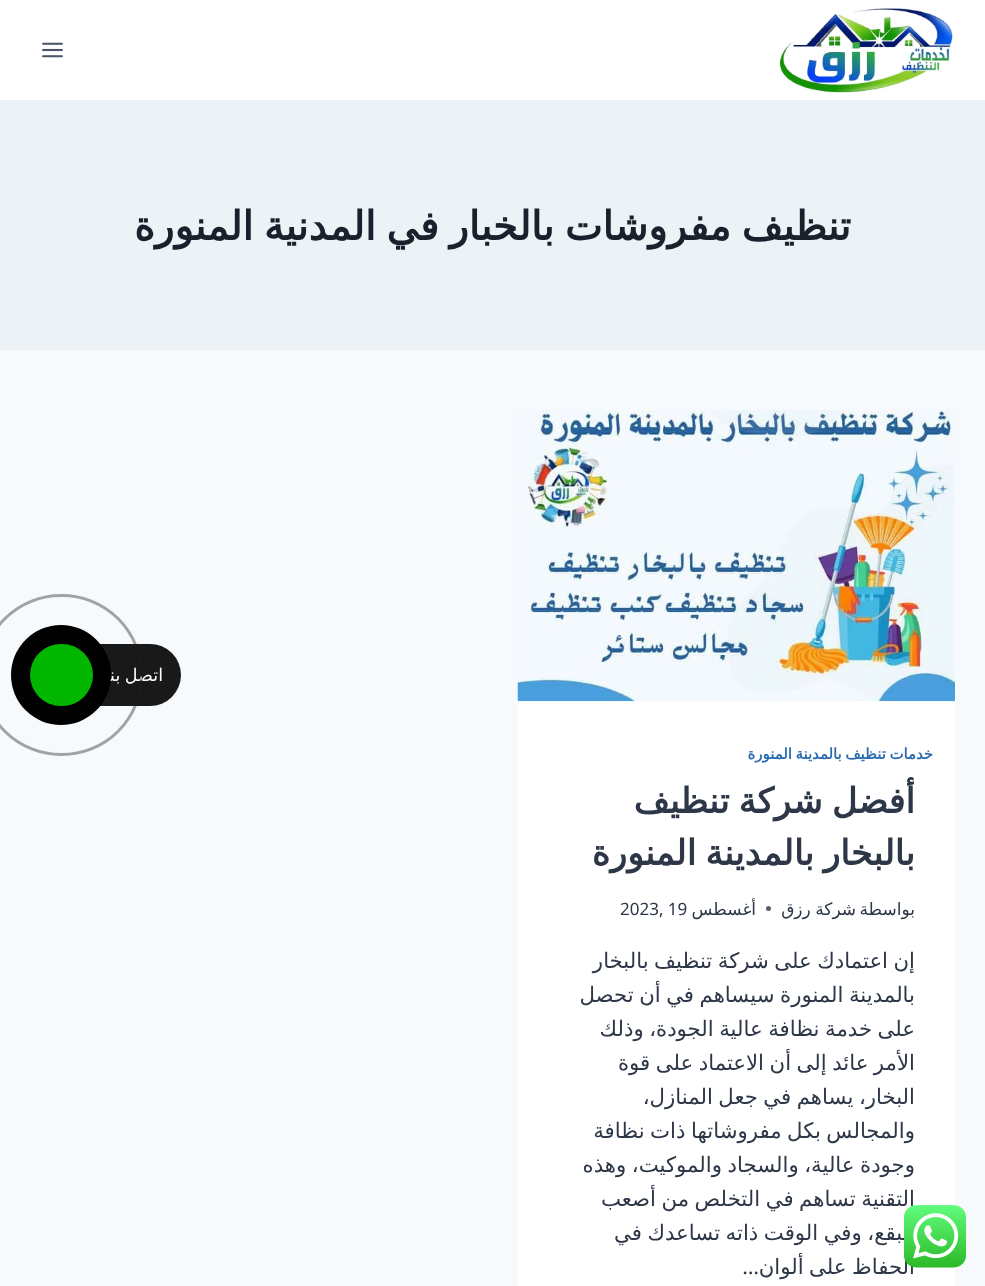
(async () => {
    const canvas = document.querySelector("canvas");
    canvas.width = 985;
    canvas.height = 1286;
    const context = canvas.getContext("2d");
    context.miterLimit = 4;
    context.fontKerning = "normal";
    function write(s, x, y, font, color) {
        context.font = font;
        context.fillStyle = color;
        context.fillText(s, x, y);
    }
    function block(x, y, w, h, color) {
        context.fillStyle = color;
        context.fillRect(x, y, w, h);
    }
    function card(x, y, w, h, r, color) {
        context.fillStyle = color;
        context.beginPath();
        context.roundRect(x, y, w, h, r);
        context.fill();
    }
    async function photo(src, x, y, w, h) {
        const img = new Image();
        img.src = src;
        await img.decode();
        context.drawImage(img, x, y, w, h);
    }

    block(0, 0, 985, 1286, "rgb(247, 250, 252)");
    block(0, 0, 985, 100, "rgb(255, 255, 255)");
    await photo("media/1.png", 780, 8, 174, 85);
    await photo("media/2.png", 42, 42, 21, 16);
    block(0, 100, 985, 250, "rgb(237, 242, 247)");
    context.wordSpacing = "-2.25px";
    context.direction = "rtl";
    write("تنظيف مفروشات بالخبار في المدنية المنورة", 851, 240, "bold 40px DejaVu Sans", "rgb(26, 32, 44)");
    block(518, 701, 437, 585, "rgb(255, 255, 255)");
    await photo("media/3.png", 517, 410, 438, 292);
    context.letterSpacing = "0.75px";
    context.wordSpacing = "-2px";
    write("خدمات تنظيف بالمدينة المنورة", 933, 759, "bold 14.9px DejaVu Sans", "rgb(43, 108, 176)");
    context.letterSpacing = "0px";
    write("أفضل شركة تنظيف", 915, 813, "bold 35px DejaVu Sans", "rgb(45, 55, 72)");
    write("بالبخار بالمدينة المنورة", 915, 865, "bold 35px DejaVu Sans", "rgb(45, 55, 72)");
    context.wordSpacing = "0px";
    write("بواسطة", 915, 915, "17px DejaVu Sans", "rgb(45, 55, 72)");
    context.wordSpacing = "-1px";
    write("شركة رزق", 856, 915, "17px DejaVu Sans", "rgb(45, 55, 72)");
    context.fillStyle = "rgb(87, 95, 109)";
    context.beginPath();
    context.arc(768.5, 908.5, 2.5, 0, Math.PI * 2);
    context.fill();
    context.wordSpacing = "0px";
    write("أغسطس", 756, 915, "17px DejaVu Sans", "rgb(45, 55, 72)");
    context.direction = "ltr";
    write("2023, 19", 620, 915, "17px Noto Sans", "rgb(45, 55, 72)");
    context.wordSpacing = "-1.25px";
    context.direction = "rtl";
    write("إن اعتمادك على شركة تنظيف بالبخار", 915, 968, "21.25px DejaVu Sans", "rgb(45, 55, 72)");
    write("بالمدينة المنورة سيساهم في أن تحصل", 915, 1002, "21.25px DejaVu Sans", "rgb(45, 55, 72)");
    write("على خدمة نظافة عالية الجودة، وذلك", 915, 1036, "21.25px DejaVu Sans", "rgb(45, 55, 72)");
    write("الأمر عائد إلى أن الاعتماد على قوة", 915, 1070, "21.25px DejaVu Sans", "rgb(45, 55, 72)");
    write("البخار، يساهم في جعل المنازل،", 915, 1104, "21.25px DejaVu Sans", "rgb(45, 55, 72)");
    write("والمجالس بكل مفروشاتها ذات نظافة", 915, 1138, "21.25px DejaVu Sans", "rgb(45, 55, 72)");
    write("وجودة عالية، والسجاد والموكيت، وهذه", 915, 1172, "21.25px DejaVu Sans", "rgb(45, 55, 72)");
    write("التقنية تساهم في التخلص من أصعب", 915, 1206, "21.25px DejaVu Sans", "rgb(45, 55, 72)");
    write("البقع، وفي الوقت ذاته تساعدك في", 915, 1240, "21.25px DejaVu Sans", "rgb(45, 55, 72)");
    write("الحفاظ على ألوان", 915, 1274, "21.25px DejaVu Sans", "rgb(45, 55, 72)");
    context.wordSpacing = "0px";
    write("…", 759, 1274, "21.25px Noto Sans", "rgb(45, 55, 72)");
    card(30, 644, 151, 62, 31, "rgb(26, 25, 25)");
    context.wordSpacing = "-1px";
    write("اتصل بنا", 163, 681, "17.5px DejaVu Sans", "rgb(255, 255, 255)");
    context.beginPath();
    context.roundRect(-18.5, 595.5, 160, 159, 79.5);
    context.strokeStyle = "rgba(30, 30, 30, 0.4)";
    context.lineWidth = 3;
    context.stroke();
    context.fillStyle = "rgb(0, 0, 0)";
    context.beginPath();
    context.arc(61, 675, 50, 0, Math.PI * 2);
    context.fill();
    card(30, 644, 63, 62, 31, "rgb(3, 183, 0)");
    await photo("media/4.png", 904, 1205, 62, 63);
})();
